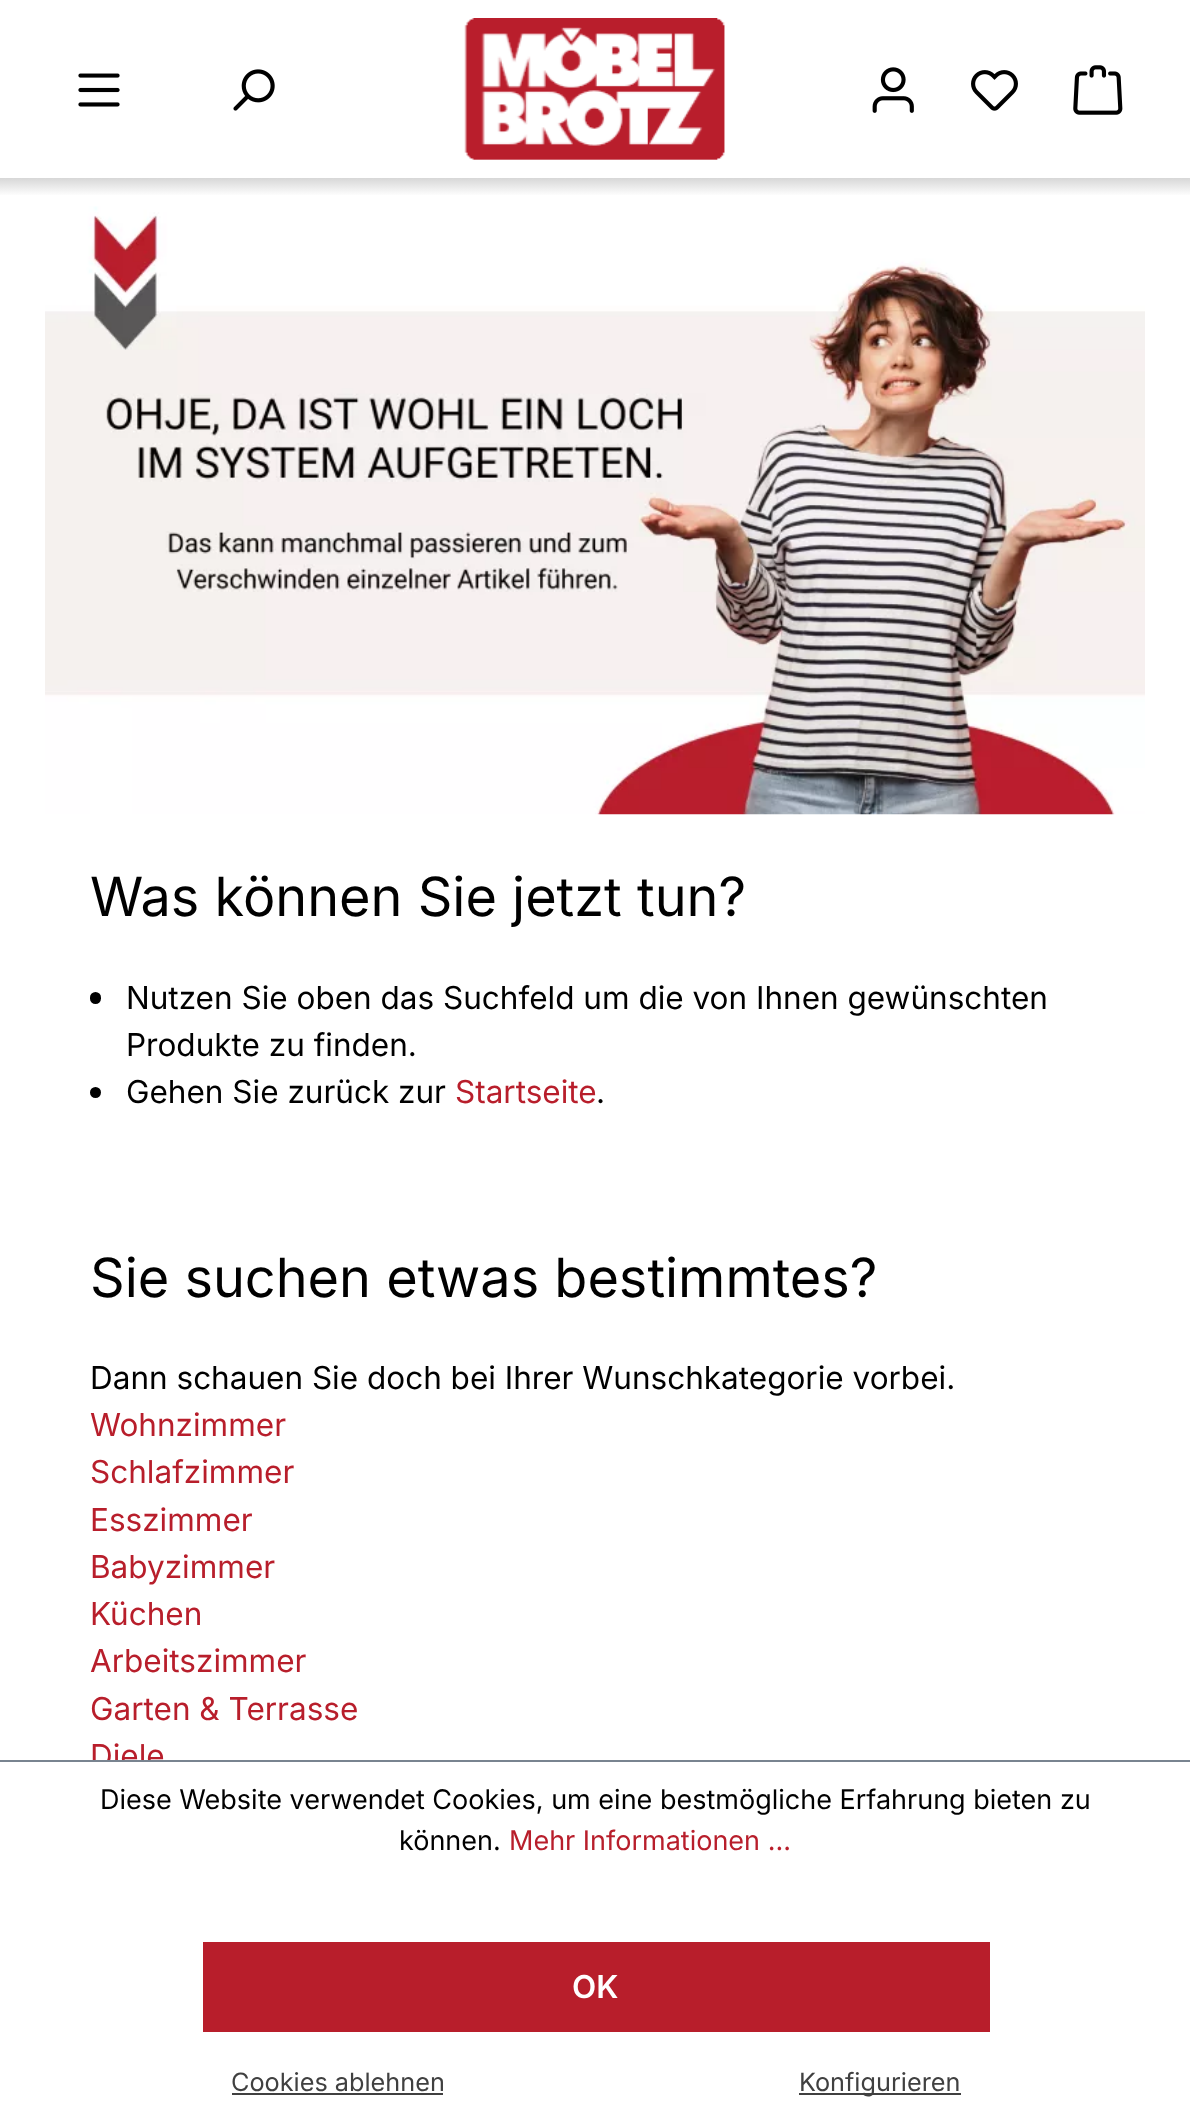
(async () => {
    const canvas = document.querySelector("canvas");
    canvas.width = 1190;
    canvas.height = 2125;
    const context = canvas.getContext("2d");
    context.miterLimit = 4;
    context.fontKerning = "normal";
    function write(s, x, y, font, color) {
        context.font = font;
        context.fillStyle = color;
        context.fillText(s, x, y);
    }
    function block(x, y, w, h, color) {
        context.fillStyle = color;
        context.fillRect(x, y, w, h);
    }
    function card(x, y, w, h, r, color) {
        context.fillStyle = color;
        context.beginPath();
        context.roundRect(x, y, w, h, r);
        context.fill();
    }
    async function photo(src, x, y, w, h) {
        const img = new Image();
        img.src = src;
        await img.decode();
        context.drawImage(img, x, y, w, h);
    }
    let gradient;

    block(0, 0, 1190, 2125, "rgb(255, 255, 255)");
    await photo("media/1.png", 78, 73, 42, 34);
    await photo("media/2.png", 233, 69, 42, 42);
    await photo("media/3.png", 464, 18, 261, 142);
    await photo("media/4.png", 872, 67, 42, 46);
    await photo("media/5.png", 971, 70, 47, 41);
    await photo("media/6.png", 1073, 65, 50, 50);
    gradient = context.createLinearGradient(595, 178, 595, 196);
    gradient.addColorStop(0, "rgb(215, 215, 215)");
    gradient.addColorStop(1, "rgb(255, 255, 255)");
    context.fillStyle = gradient;
    context.fillRect(0, 178, 1190, 17);
    await photo("media/7.png", 45, 206, 1100, 609);
    write("Was können Sie jetzt tun?", 90, 916, "54px Inter", "rgb(0, 0, 0)");
    card(90, 992, 11, 12, 5.5, "rgb(0, 0, 0)");
    write("Nutzen Sie oben das Suchfeld um die von Ihnen gewünschten", 126, 1009, "31.5px Inter", "rgb(0, 0, 0)");
    write("Produkte zu finden.", 126, 1056, "31.5px Inter", "rgb(0, 0, 0)");
    context.beginPath();
    context.arc(95.5, 1092.5, 5.5, 0, Math.PI * 2);
    context.fill();
    write("Gehen Sie zurück zur", 126, 1103, "31.5px Inter", "rgb(0, 0, 0)");
    write("Startseite", 455, 1103, "31.5px Inter", "rgb(184, 30, 43)");
    write(".", 596, 1103, "31.5px Inter", "rgb(0, 0, 0)");
    write("Sie suchen etwas bestimmtes?", 90, 1297, "54px Inter", "rgb(0, 0, 0)");
    write("Dann schauen Sie doch bei Ihrer Wunschkategorie vorbei.", 90, 1389, "31.5px Inter", "rgb(0, 0, 0)");
    write("Wohnzimmer", 90, 1436, "31.5px Inter", "rgb(184, 30, 43)");
    write("Schlafzimmer", 90, 1483, "31.5px Inter", "rgb(184, 30, 43)");
    write("Esszimmer", 90, 1531, "31.5px Inter", "rgb(184, 30, 43)");
    write("Babyzimmer", 90, 1578, "31.5px Inter", "rgb(184, 30, 43)");
    write("Küchen", 90, 1625, "31.5px Inter", "rgb(184, 30, 43)");
    write("Arbeitszimmer", 90, 1672, "31.5px Inter", "rgb(184, 30, 43)");
    write("Garten & Terrasse", 90, 1720, "31.5px Inter", "rgb(184, 30, 43)");
    write("Diele", 90, 1767, "31.5px Inter", "rgb(184, 30, 43)");
    block(92, 1762, 71, 6, "rgb(255, 255, 255)");
    block(0, 1760, 1190, 2, "rgb(121, 132, 144)");
    write("Diese Website verwendet Cookies, um eine bestmögliche Erfahrung bieten zu", 100, 1809, "27px Inter", "rgb(0, 0, 0)");
    write("können.", 399, 1850, "27px Inter", "rgb(0, 0, 0)");
    write("Mehr Informationen ...", 509, 1850, "27px Inter", "rgb(184, 30, 43)");
    block(203, 1942, 787, 90, "rgb(184, 30, 43)");
    write("OK", 572, 1998, "600 31.5px Inter", "rgb(255, 255, 255)");
    write("Cookies ablehnen", 231, 2091, "25.25px Inter", "rgb(64, 64, 64)");
    block(232, 2093, 211, 2, "rgb(64, 64, 64)");
    block(799, 2093, 162, 2, "rgb(64, 64, 64)");
    write("Konfigurieren", 799, 2091, "25.25px Inter", "rgb(64, 64, 64)");
})();
